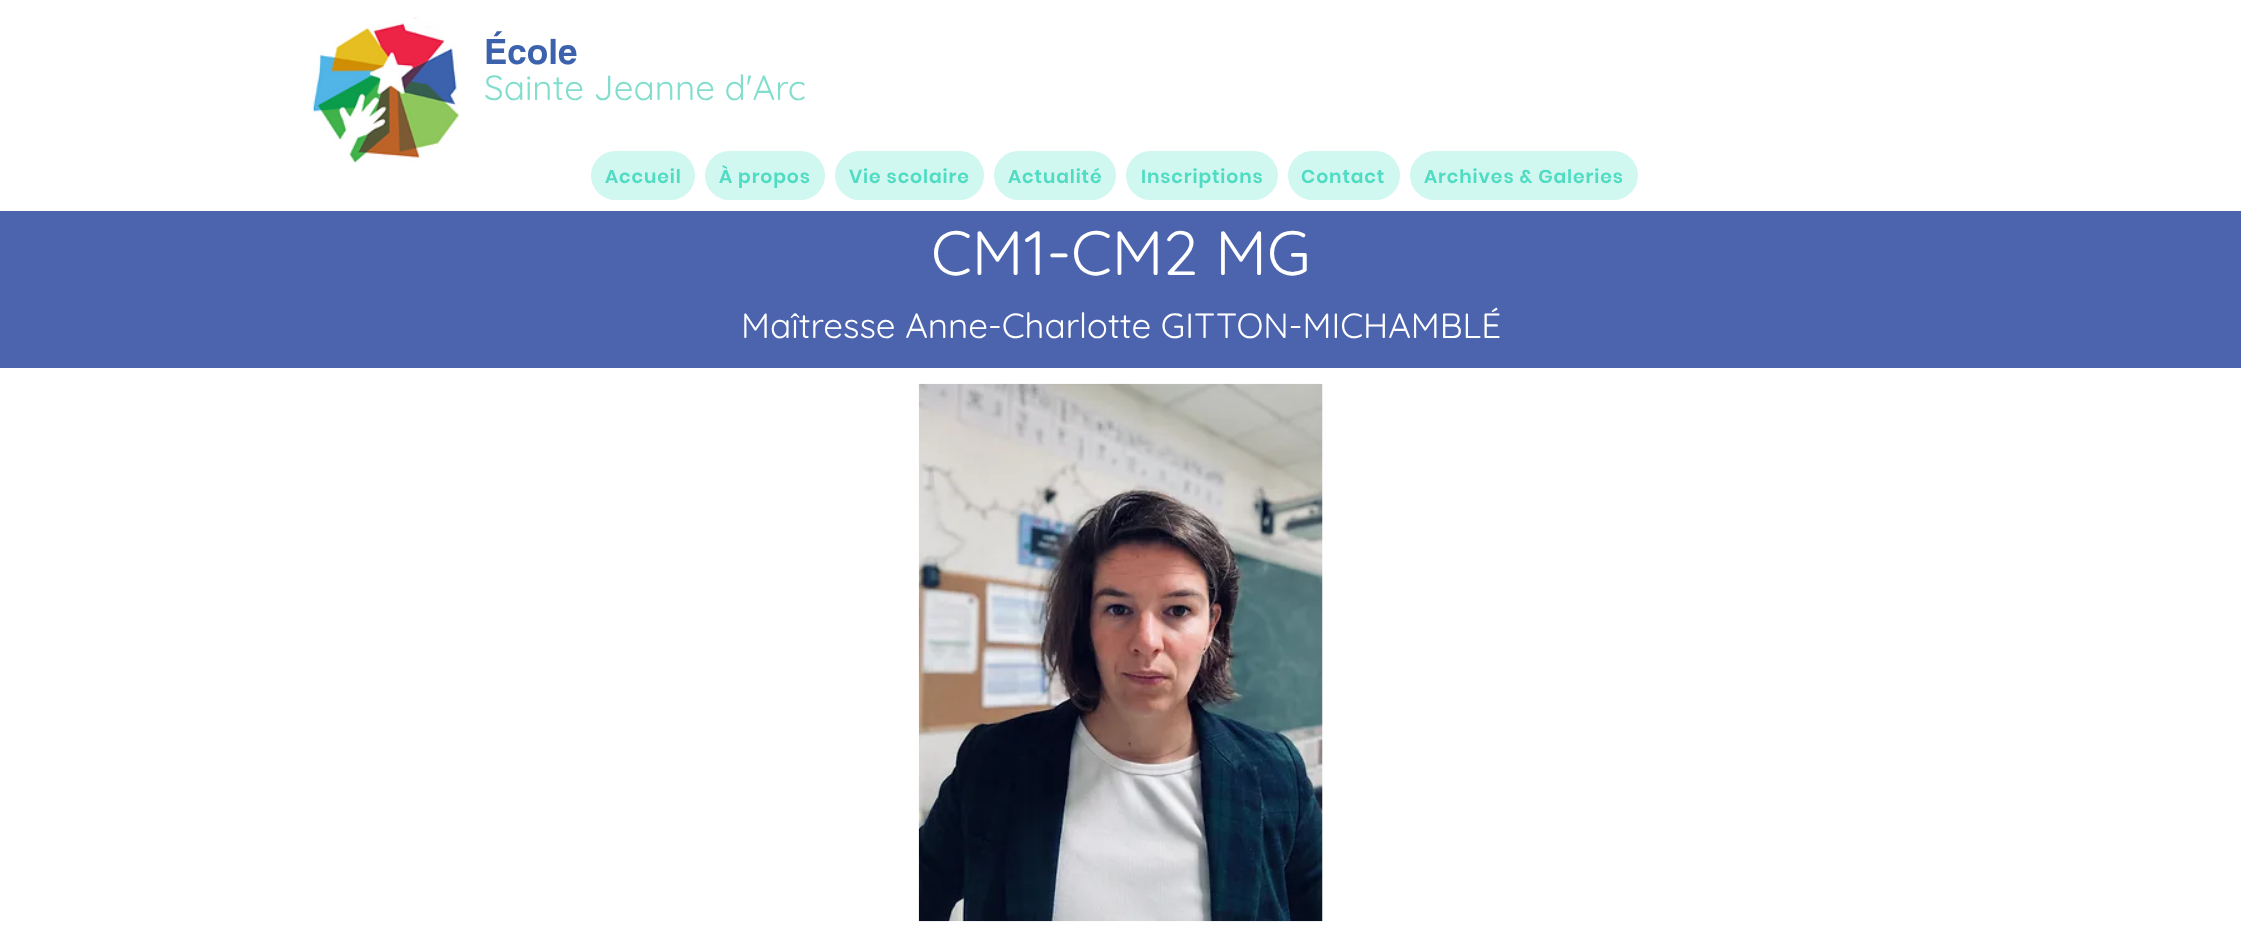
(async () => {
    const canvas = document.querySelector("canvas");
    canvas.width = 2241;
    canvas.height = 925;
    const context = canvas.getContext("2d");
    context.miterLimit = 4;
    context.fontKerning = "normal";
    function write(s, x, y, font, color) {
        context.font = font;
        context.fillStyle = color;
        context.fillText(s, x, y);
    }
    function block(x, y, w, h, color) {
        context.fillStyle = color;
        context.fillRect(x, y, w, h);
    }
    function card(x, y, w, h, r, color) {
        context.fillStyle = color;
        context.beginPath();
        context.roundRect(x, y, w, h, r);
        context.fill();
    }
    async function photo(src, x, y, w, h) {
        const img = new Image();
        img.src = src;
        await img.decode();
        context.drawImage(img, x, y, w, h);
    }

    block(0, 0, 2241, 925, "rgb(255, 255, 255)");
    await photo("media/1.png", 312, 17, 147, 146);
    write("École", 484, 64, "bold 35px helvetica", "rgb(61, 98, 173)");
    write("Sainte Jeanne d'Arc", 484, 100, "35px Quicksand", "rgb(129, 222, 205)");
    card(591, 151, 104, 49, 24.5, "rgb(208, 247, 240)");
    context.letterSpacing = "0.9px";
    write("Accueil", 605, 183, "600 18.75px Poppins", "rgb(79, 220, 194)");
    card(705, 151, 120, 49, 24.5, "rgb(208, 247, 240)");
    write("À propos", 719, 183, "600 18.75px Poppins", "rgb(79, 220, 194)");
    card(835, 151, 149, 49, 24.5, "rgb(208, 247, 240)");
    write("Vie scolaire", 849, 183, "600 18.75px Poppins", "rgb(79, 220, 194)");
    card(994, 151, 122, 49, 24.5, "rgb(208, 247, 240)");
    write("Actualité", 1008, 183, "600 18.75px Poppins", "rgb(79, 220, 194)");
    card(1126, 151, 152, 49, 24.5, "rgb(208, 247, 240)");
    write("Inscriptions", 1141, 183, "600 18.75px Poppins", "rgb(79, 220, 194)");
    card(1288, 151, 112, 49, 24.5, "rgb(208, 247, 240)");
    write("Contact", 1301, 183, "600 18.75px Poppins", "rgb(79, 220, 194)");
    card(1410, 151, 228, 49, 24.5, "rgb(208, 247, 240)");
    write("Archives & Galeries", 1424, 183, "600 18.75px Poppins", "rgb(79, 220, 194)");
    block(0, 211, 2241, 157, "rgb(75, 100, 173)");
    context.letterSpacing = "0px";
    write("CM1-CM2 MG", 931, 275, "62.5px Quicksand", "rgb(255, 255, 255)");
    write("Maîtresse Anne-Charlotte GITTON-MICHAMBLÉ", 741, 338, "35px Quicksand", "rgb(255, 255, 255)");
    await photo("media/2.png", 918, 383, 405, 539);
})();
